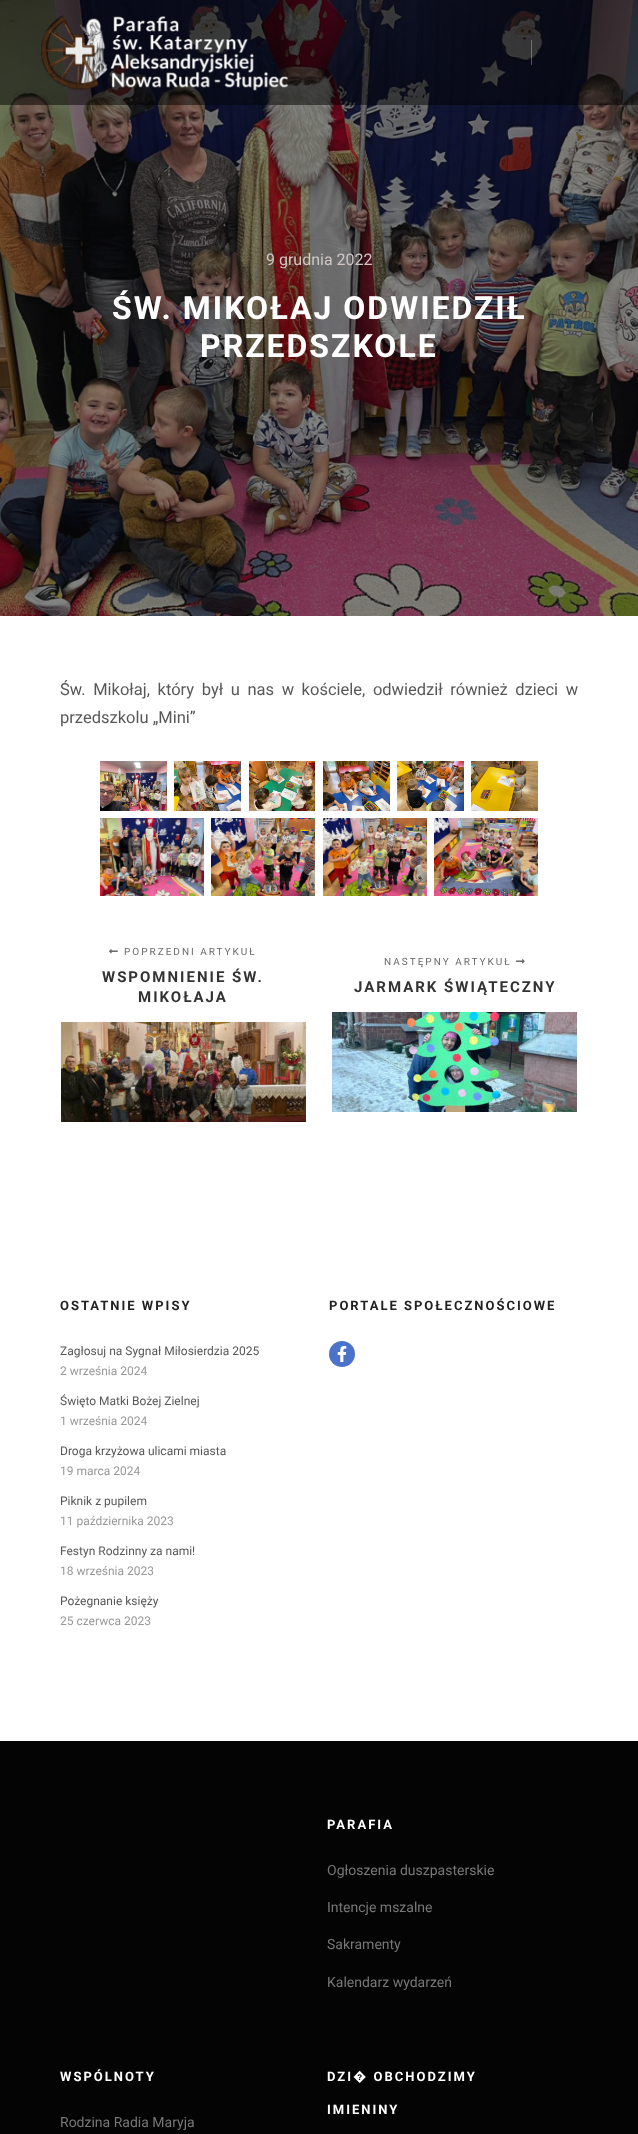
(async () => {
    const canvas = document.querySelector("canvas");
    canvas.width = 638;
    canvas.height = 2134;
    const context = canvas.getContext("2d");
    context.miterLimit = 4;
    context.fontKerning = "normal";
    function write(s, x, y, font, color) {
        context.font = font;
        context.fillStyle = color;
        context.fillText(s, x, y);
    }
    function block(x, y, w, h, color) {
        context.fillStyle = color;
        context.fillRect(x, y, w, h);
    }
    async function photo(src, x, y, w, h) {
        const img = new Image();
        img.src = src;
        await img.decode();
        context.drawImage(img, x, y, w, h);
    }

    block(0, 0, 638, 2134, "rgb(255, 255, 255)");
    await photo("media/2.png", 0, 0, 638, 616);
    block(0, 0, 638, 105, "rgba(0, 0, 0, 0.5)");
    await photo("media/1.png", 41, 15, 248, 76);
    block(531, 40, 1, 25, "rgba(255, 255, 255, 0.3)");
    write("9 grudnia 2022", 266, 265, "16px Roboto", "rgb(207, 199, 198)");
    context.letterSpacing = "2px";
    write("ŚW. MIKOŁAJ ODWIEDZIŁ", 112, 319, "bold 32px Roboto", "rgb(255, 255, 255)");
    write("PRZEDSZKOLE", 200, 357, "bold 32px Roboto", "rgb(255, 255, 255)");
    context.letterSpacing = "0px";
    context.wordSpacing = "3.5px";
    write("Św. Mikołaj, który był u nas w kościele, odwiedził również dzieci w", 60, 695, "16.5px Roboto", "rgb(88, 88, 88)");
    context.wordSpacing = "0px";
    write("przedszkolu „Mini”", 60, 723, "16.5px Roboto", "rgb(88, 88, 88)");
    await photo("media/3.png", 100, 761, 67, 50);
    await photo("media/4.png", 174, 761, 67, 50);
    await photo("media/5.png", 249, 761, 66, 50);
    await photo("media/6.png", 323, 761, 67, 50);
    await photo("media/7.png", 397, 761, 67, 50);
    await photo("media/8.png", 471, 761, 67, 50);
    await photo("media/9.png", 100, 818, 104, 78);
    await photo("media/10.png", 211, 818, 104, 78);
    await photo("media/11.png", 323, 818, 104, 78);
    await photo("media/12.png", 434, 818, 104, 78);
    await photo("media/13.png", 109, 949, 9, 5);
    context.letterSpacing = "2px";
    write("POPRZEDNI ARTYKUŁ", 124, 955, "10px Roboto", "rgb(106, 106, 106)");
    write("WSPOMNIENIE ŚW.", 102, 982, "bold 15px Roboto", "rgb(51, 51, 51)");
    write("MIKOŁAJA", 138, 1002, "bold 15px Roboto", "rgb(51, 51, 51)");
    await photo("media/14.png", 61, 1022, 245, 100);
    write("NASTĘPNY ARTYKUŁ", 384, 965, "10px Roboto", "rgb(106, 106, 106)");
    await photo("media/15.png", 516, 959, 9, 5);
    write("JARMARK ŚWIĄTECZNY", 354, 992, "bold 15px Roboto", "rgb(51, 51, 51)");
    await photo("media/16.png", 332, 1012, 245, 100);
    write("OSTATNIE WPISY", 60, 1310, "bold 13px Roboto", "rgb(34, 34, 34)");
    context.letterSpacing = "0px";
    write("Zagłosuj na Sygnał Miłosierdzia 2025", 60, 1355, "12px Roboto", "rgb(88, 88, 88)");
    write("2 września 2024", 60, 1375, "12px Roboto", "rgb(153, 153, 153)");
    write("Święto Matki Bożej Zielnej", 60, 1405, "12px Roboto", "rgb(88, 88, 88)");
    write("1 września 2024", 60, 1425, "12px Roboto", "rgb(153, 153, 153)");
    write("Droga krzyżowa ulicami miasta", 60, 1455, "12px Roboto", "rgb(88, 88, 88)");
    write("19 marca 2024", 60, 1475, "12px Roboto", "rgb(153, 153, 153)");
    write("Piknik z pupilem", 60, 1505, "12px Roboto", "rgb(88, 88, 88)");
    write("11 października 2023", 60, 1525, "12px Roboto", "rgb(153, 153, 153)");
    write("Festyn Rodzinny za nami!", 60, 1555, "12px Roboto", "rgb(88, 88, 88)");
    write("18 września 2023", 60, 1575, "12px Roboto", "rgb(153, 153, 153)");
    write("Pożegnanie księży", 60, 1605, "12px Roboto", "rgb(88, 88, 88)");
    write("25 czerwca 2023", 60, 1625, "12px Roboto", "rgb(153, 153, 153)");
    context.letterSpacing = "2px";
    write("PORTALE SPOŁECZNOŚCIOWE", 329, 1310, "bold 13px Roboto", "rgb(34, 34, 34)");
    context.fillStyle = "rgb(74, 115, 201)";
    context.beginPath();
    context.arc(342, 1354, 13, 0, Math.PI * 2);
    context.fill();
    await photo("media/17.png", 337, 1346, 10, 16);
    block(0, 1741, 638, 393, "rgb(4, 4, 4)");
    write("PARAFIA", 327, 1829, "bold 13px Roboto", "rgb(255, 255, 255)");
    context.letterSpacing = "0px";
    write("Ogłoszenia duszpasterskie", 327, 1875, "14px Roboto", "rgb(119, 119, 119)");
    write("Intencje mszalne", 327, 1912, "14px Roboto", "rgb(119, 119, 119)");
    write("Sakramenty", 327, 1949, "14px Roboto", "rgb(119, 119, 119)");
    write("Kalendarz wydarzeń", 327, 1987, "14px Roboto", "rgb(119, 119, 119)");
    context.letterSpacing = "2px";
    write("WSPÓLNOTY", 60, 2081, "bold 13px Roboto", "rgb(255, 255, 255)");
    context.letterSpacing = "0px";
    write("Rodzina Radia Maryja", 60, 2127, "14px Roboto", "rgb(119, 119, 119)");
    context.letterSpacing = "2px";
    write("DZI� OBCHODZIMY", 327, 2081, "bold 13px Roboto", "rgb(255, 255, 255)");
    write("IMIENINY", 327, 2114, "bold 13px Roboto", "rgb(255, 255, 255)");
})();
